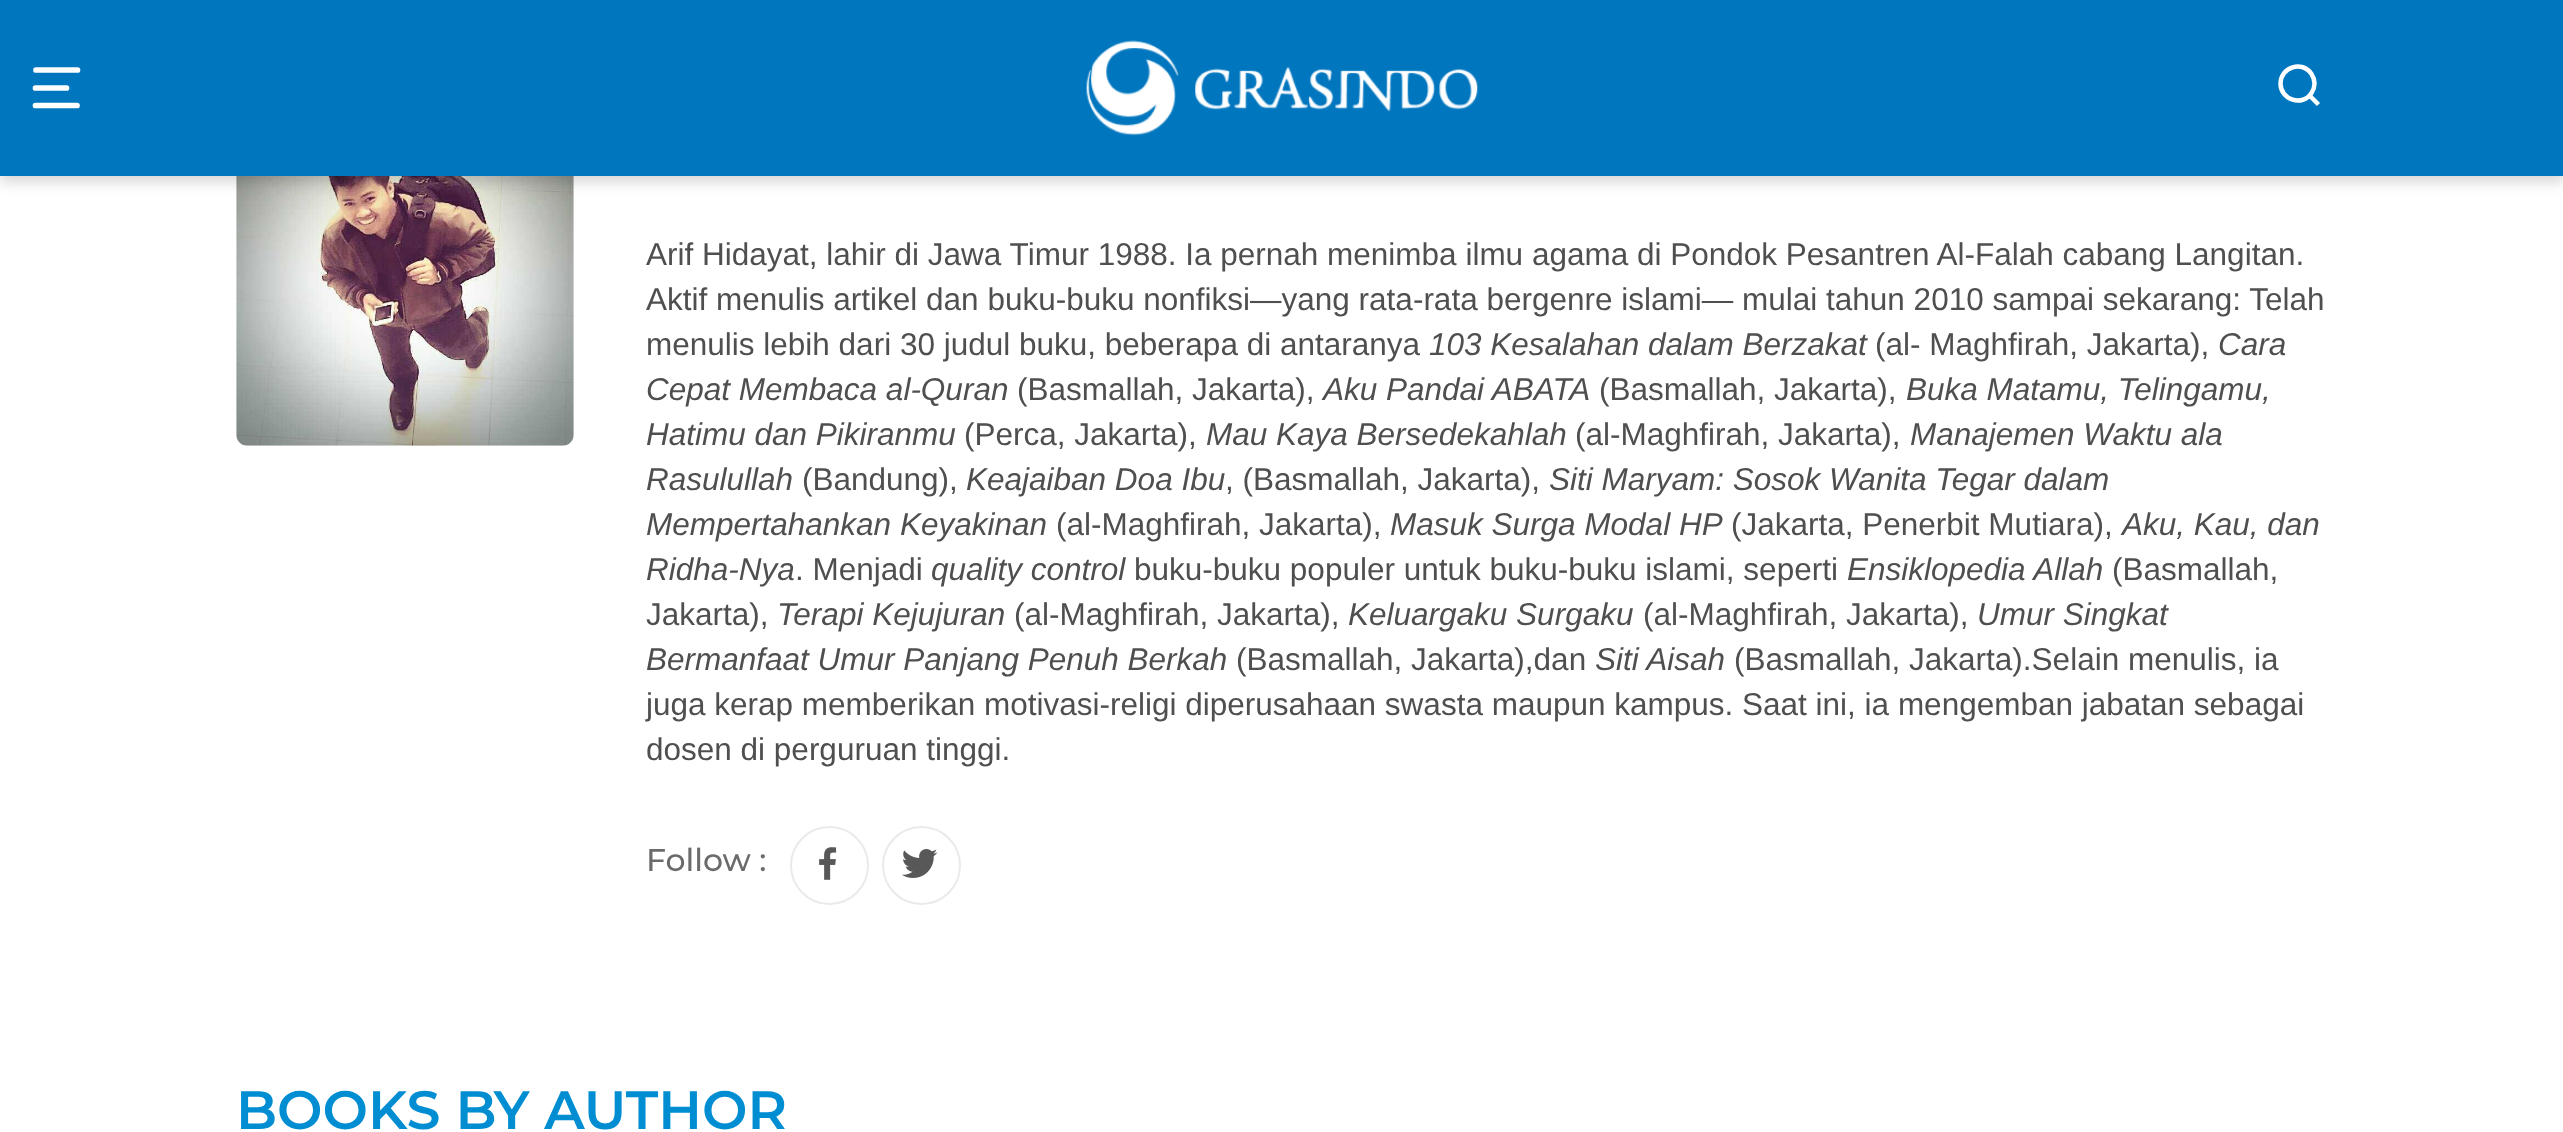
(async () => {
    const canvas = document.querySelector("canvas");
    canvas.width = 2563;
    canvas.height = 1132;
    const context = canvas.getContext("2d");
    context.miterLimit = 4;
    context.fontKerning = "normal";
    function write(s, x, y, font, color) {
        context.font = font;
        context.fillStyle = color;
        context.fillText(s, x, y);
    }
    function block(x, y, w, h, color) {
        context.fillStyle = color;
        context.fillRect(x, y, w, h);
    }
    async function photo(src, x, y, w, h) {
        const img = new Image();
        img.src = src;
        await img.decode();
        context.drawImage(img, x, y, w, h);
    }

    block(0, 0, 2563, 1132, "rgb(255, 255, 255)");
    await photo("media/2.png", 236, 176, 338, 270);
    context.fillStyle = "rgba(0, 0, 0, 0.16)";
    context.filter = "blur(7px)";
    context.beginPath();
    context.rect(0, 7, 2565, 175);
    context.fill();
    context.filter = "none";
    block(0, 0, 2563, 176, "rgb(0, 118, 190)");
    await photo("media/1.png", 1086, 40, 393, 96);
    context.beginPath();
    context.moveTo(2318.5, 104.5);
    context.lineTo(2309.5, 95.5);
    context.closePath();
    context.moveTo(2314.5, 83.5);
    context.bezierCurveTo(2314.5, 87, 2313.5, 90, 2311.5, 93);
    context.bezierCurveTo(2302.5, 107, 2280.5, 100, 2280.5, 83.5);
    context.bezierCurveTo(2280.5, 67, 2302.5, 60, 2311.5, 74);
    context.bezierCurveTo(2313.5, 77, 2314.5, 80, 2314.5, 83.5);
    context.closePath();
    context.strokeStyle = "rgb(255, 255, 255)";
    context.lineWidth = 4.5;
    context.lineCap = "round";
    context.stroke();
    context.beginPath();
    context.moveTo(35.5, 105.5);
    context.lineTo(77, 105.5);
    context.moveTo(35.5, 88);
    context.lineTo(66.5, 88);
    context.moveTo(36, 70);
    context.lineTo(77.5, 70);
    context.lineWidth = 5.7;
    context.stroke();
    write("Arif Hidayat, lahir di Jawa Timur 1988. Ia pernah menimba ilmu agama di Pondok Pesantren Al-Falah cabang Langitan.", 646, 265, "31.5px Liberation Sans", "rgb(79, 79, 79)");
    write("Aktif menulis artikel dan buku-buku nonfiksi—yang rata-rata bergenre islami— mulai tahun 2010 sampai sekarang: Telah", 646, 310, "31.5px Liberation Sans", "rgb(79, 79, 79)");
    write("menulis lebih dari 30 judul buku, beberapa di antaranya", 646, 355, "31.5px Liberation Sans", "rgb(79, 79, 79)");
    write("103 Kesalahan dalam Berzakat", 1429, 355, "italic 31.5px Liberation Sans", "rgb(79, 79, 79)");
    write("(al- Maghfirah, Jakarta),", 1875, 355, "31.5px Liberation Sans", "rgb(79, 79, 79)");
    write("Cara", 2218, 355, "italic 31.5px Liberation Sans", "rgb(79, 79, 79)");
    write("Cepat Membaca al-Quran", 646, 400, "italic 31.5px Liberation Sans", "rgb(79, 79, 79)");
    write("(Basmallah, Jakarta),", 1017, 400, "31.5px Liberation Sans", "rgb(79, 79, 79)");
    write("Aku Pandai ABATA", 1323, 400, "italic 31.5px Liberation Sans", "rgb(79, 79, 79)");
    write("(Basmallah, Jakarta),", 1599, 400, "31.5px Liberation Sans", "rgb(79, 79, 79)");
    write("Buka Matamu, Telingamu,", 1906, 400, "italic 31.5px Liberation Sans", "rgb(79, 79, 79)");
    write("Hatimu dan Pikiranmu", 646, 445, "italic 31.5px Liberation Sans", "rgb(79, 79, 79)");
    write("(Perca, Jakarta),", 964, 445, "31.5px Liberation Sans", "rgb(79, 79, 79)");
    write("Mau Kaya Bersedekahlah", 1206, 445, "italic 31.5px Liberation Sans", "rgb(79, 79, 79)");
    write("(al-Maghfirah, Jakarta),", 1575, 445, "31.5px Liberation Sans", "rgb(79, 79, 79)");
    write("Manajemen Waktu ala", 1910, 445, "italic 31.5px Liberation Sans", "rgb(79, 79, 79)");
    write("Rasulullah", 646, 490, "italic 31.5px Liberation Sans", "rgb(79, 79, 79)");
    write("(Bandung),", 802, 490, "31.5px Liberation Sans", "rgb(79, 79, 79)");
    write("Keajaiban Doa Ibu", 966, 490, "italic 31.5px Liberation Sans", "rgb(79, 79, 79)");
    write(", (Basmallah, Jakarta),", 1225, 490, "31.5px Liberation Sans", "rgb(79, 79, 79)");
    write("Siti Maryam: Sosok Wanita Tegar dalam", 1549, 490, "italic 31.5px Liberation Sans", "rgb(79, 79, 79)");
    write("Mempertahankan Keyakinan", 646, 535, "italic 31.5px Liberation Sans", "rgb(79, 79, 79)");
    write("(al-Maghfirah, Jakarta),", 1056, 535, "31.5px Liberation Sans", "rgb(79, 79, 79)");
    write("Masuk Surga Modal HP", 1390, 535, "italic 31.5px Liberation Sans", "rgb(79, 79, 79)");
    write("(Jakarta, Penerbit Mutiara),", 1731, 535, "31.5px Liberation Sans", "rgb(79, 79, 79)");
    write("Aku, Kau, dan", 2122, 535, "italic 31.5px Liberation Sans", "rgb(79, 79, 79)");
    write("Ridha-Nya", 646, 580, "italic 31.5px Liberation Sans", "rgb(79, 79, 79)");
    write(". Menjadi", 795, 580, "31.5px Liberation Sans", "rgb(79, 79, 79)");
    write("quality control", 931, 580, "italic 31.5px Liberation Sans", "rgb(79, 79, 79)");
    write("buku-buku populer untuk buku-buku islami, seperti", 1134, 580, "31.5px Liberation Sans", "rgb(79, 79, 79)");
    write("Ensiklopedia Allah", 1847, 580, "italic 31.5px Liberation Sans", "rgb(79, 79, 79)");
    write("(Basmallah,", 2112, 580, "31.5px Liberation Sans", "rgb(79, 79, 79)");
    write("Jakarta),", 646, 625, "31.5px Liberation Sans", "rgb(79, 79, 79)");
    write("Terapi Kejujuran", 777, 625, "italic 31.5px Liberation Sans", "rgb(79, 79, 79)");
    write("(al-Maghfirah, Jakarta),", 1014, 625, "31.5px Liberation Sans", "rgb(79, 79, 79)");
    write("Keluargaku Surgaku", 1348, 625, "italic 31.5px Liberation Sans", "rgb(79, 79, 79)");
    write("(al-Maghfirah, Jakarta),", 1643, 625, "31.5px Liberation Sans", "rgb(79, 79, 79)");
    write("Umur Singkat", 1977, 625, "italic 31.5px Liberation Sans", "rgb(79, 79, 79)");
    write("Bermanfaat Umur Panjang Penuh Berkah", 646, 670, "italic 31.5px Liberation Sans", "rgb(79, 79, 79)");
    write("(Basmallah, Jakarta),dan", 1236, 670, "31.5px Liberation Sans", "rgb(79, 79, 79)");
    write("Siti Aisah", 1595, 670, "italic 31.5px Liberation Sans", "rgb(79, 79, 79)");
    write("(Basmallah, Jakarta).Selain menulis, ia", 1734, 670, "31.5px Liberation Sans", "rgb(79, 79, 79)");
    write("juga kerap memberikan motivasi-religi diperusahaan swasta maupun kampus. Saat ini, ia mengemban jabatan sebagai", 646, 715, "31.5px Liberation Sans", "rgb(79, 79, 79)");
    write("dosen di perguruan tinggi.", 646, 760, "31.5px Liberation Sans", "rgb(79, 79, 79)");
    write("Follow :", 646, 871, "500 31.5px Montserrat", "rgb(107, 107, 107)");
    context.beginPath();
    context.arc(829.5, 865.5, 38.5, 0, Math.PI * 2);
    context.strokeStyle = "rgb(234, 234, 234)";
    context.lineWidth = 2;
    context.stroke();
    await photo("media/3.png", 819, 847, 18, 33);
    context.beginPath();
    context.arc(921.5, 865.5, 38.5, 0, Math.PI * 2);
    context.stroke();
    await photo("media/4.png", 902, 849, 36, 29);
    write("BOOKS BY AUTHOR", 236, 1129, "600 54px Montserrat", "rgb(0, 141, 210)");
})();
